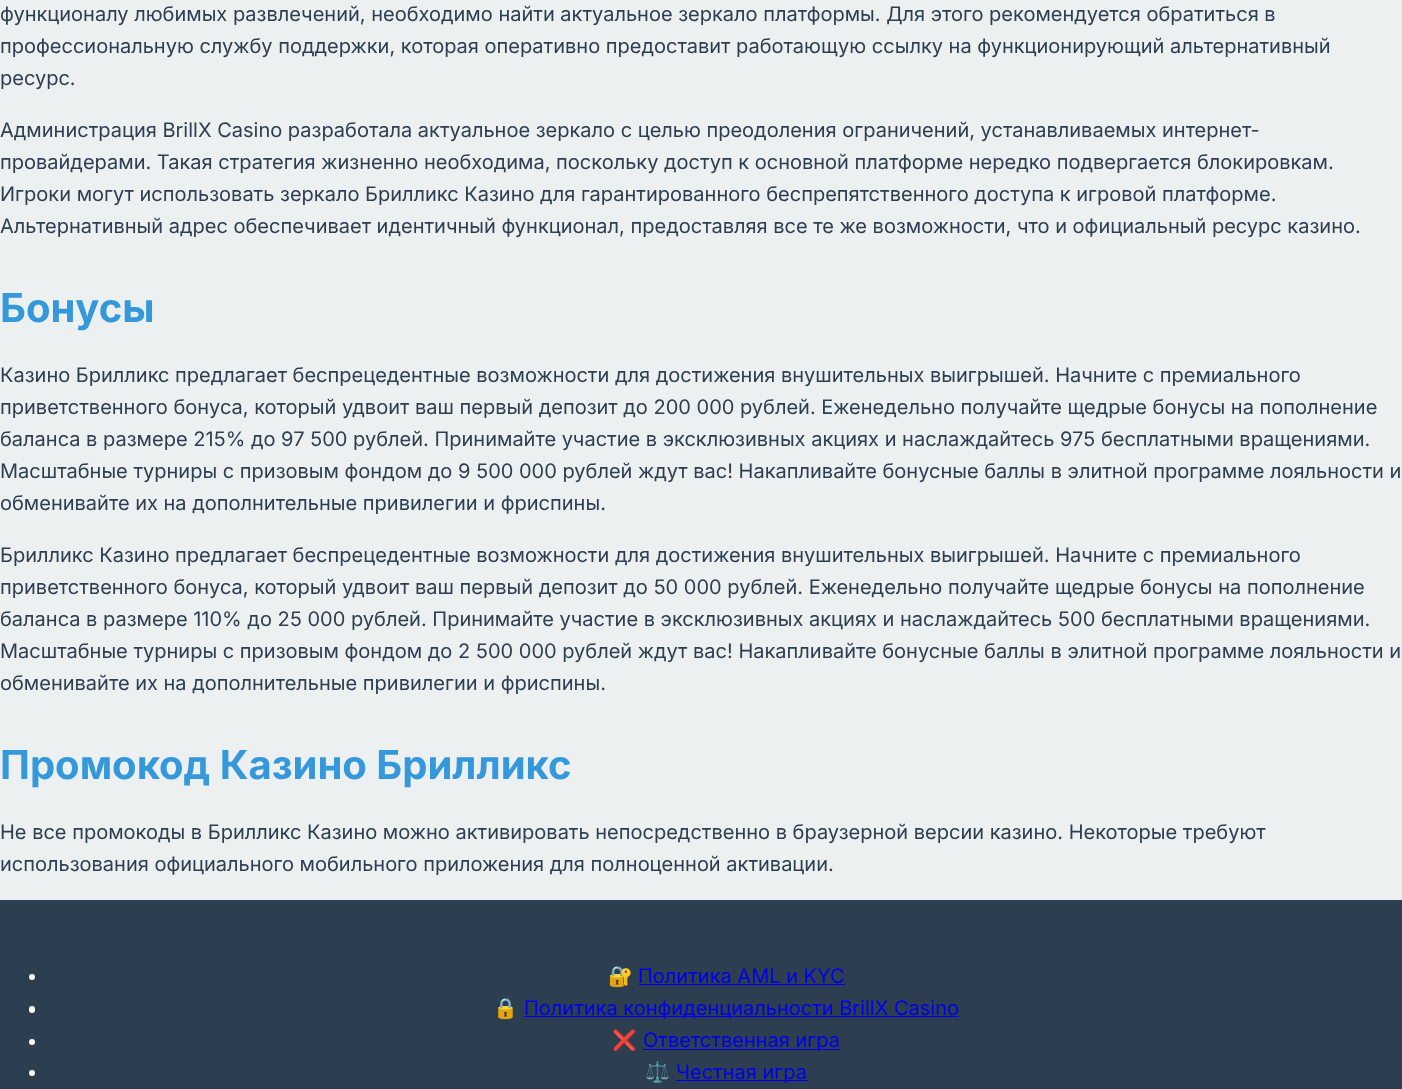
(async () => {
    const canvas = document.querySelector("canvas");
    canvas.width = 1402;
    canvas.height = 1089;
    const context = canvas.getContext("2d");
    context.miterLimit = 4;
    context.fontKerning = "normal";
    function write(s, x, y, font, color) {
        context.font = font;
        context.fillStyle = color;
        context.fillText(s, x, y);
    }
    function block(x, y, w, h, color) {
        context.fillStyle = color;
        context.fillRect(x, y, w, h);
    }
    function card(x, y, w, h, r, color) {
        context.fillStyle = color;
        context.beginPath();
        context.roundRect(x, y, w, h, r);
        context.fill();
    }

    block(0, 0, 1402, 1089, "rgb(236, 240, 241)");
    write("функционалу любимых развлечений, необходимо найти актуальное зеркало платформы. Для этого рекомендуется обратиться в", 0, 21, "20px Inter", "rgb(44, 62, 80)");
    write("профессиональную службу поддержки, которая оперативно предоставит работающую ссылку на функционирующий альтернативный", 0, 53, "20px Inter", "rgb(44, 62, 80)");
    write("ресурс.", 0, 85, "20px Inter", "rgb(44, 62, 80)");
    write("Администрация BrillX Casino разработала актуальное зеркало с целью преодоления ограничений, устанавливаемых интернет-", 0, 137, "20px Inter", "rgb(44, 62, 80)");
    write("провайдерами. Такая стратегия жизненно необходима, поскольку доступ к основной платформе нередко подвергается блокировкам.", 0, 169, "20px Inter", "rgb(44, 62, 80)");
    write("Игроки могут использовать зеркало Брилликс Казино для гарантированного беспрепятственного доступа к игровой платформе.", 0, 201, "20px Inter", "rgb(44, 62, 80)");
    write("Альтернативный адрес обеспечивает идентичный функционал, предоставляя все те же возможности, что и официальный ресурс казино.", 0, 233, "20px Inter", "rgb(44, 62, 80)");
    write("Бонусы", 0, 322, "bold 40px Inter", "rgb(52, 152, 219)");
    write("Казино Брилликс предлагает беспрецедентные возможности для достижения внушительных выигрышей. Начните с премиального", 0, 382, "20px Inter", "rgb(44, 62, 80)");
    write("приветственного бонуса, который удвоит ваш первый депозит до 200 000 рублей. Еженедельно получайте щедрые бонусы на пополнение", 0, 414, "20px Inter", "rgb(44, 62, 80)");
    write("баланса в размере 215% до 97 500 рублей. Принимайте участие в эксклюзивных акциях и наслаждайтесь 975 бесплатными вращениями.", 0, 446, "20px Inter", "rgb(44, 62, 80)");
    write("Масштабные турниры с призовым фондом до 9 500 000 рублей ждут вас! Накапливайте бонусные баллы в элитной программе лояльности и", 0, 478, "20px Inter", "rgb(44, 62, 80)");
    write("обменивайте их на дополнительные привилегии и фриспины.", 0, 510, "20px Inter", "rgb(44, 62, 80)");
    write("Брилликс Казино предлагает беспрецедентные возможности для достижения внушительных выигрышей. Начните с премиального", 0, 562, "20px Inter", "rgb(44, 62, 80)");
    write("приветственного бонуса, который удвоит ваш первый депозит до 50 000 рублей. Еженедельно получайте щедрые бонусы на пополнение", 0, 594, "20px Inter", "rgb(44, 62, 80)");
    write("баланса в размере 110% до 25 000 рублей. Принимайте участие в эксклюзивных акциях и наслаждайтесь 500 бесплатными вращениями.", 0, 626, "20px Inter", "rgb(44, 62, 80)");
    write("Масштабные турниры с призовым фондом до 2 500 000 рублей ждут вас! Накапливайте бонусные баллы в элитной программе лояльности и", 0, 658, "20px Inter", "rgb(44, 62, 80)");
    write("обменивайте их на дополнительные привилегии и фриспины.", 0, 690, "20px Inter", "rgb(44, 62, 80)");
    write("Промокод Казино Брилликс", 0, 779, "bold 40px Inter", "rgb(52, 152, 219)");
    write("Не все промокоды в Брилликс Казино можно активировать непосредственно в браузерной версии казино. Некоторые требуют", 0, 839, "20px Inter", "rgb(44, 62, 80)");
    write("использования официального мобильного приложения для полноценной активации.", 0, 871, "20px Inter", "rgb(44, 62, 80)");
    block(0, 900, 1402, 189, "rgb(44, 62, 80)");
    context.fillStyle = "rgb(255, 255, 255)";
    context.beginPath();
    context.arc(32, 977, 3, 0, Math.PI * 2);
    context.fill();
    write("🔐", 608, 983, "20px Noto Color Emoji", "rgb(255, 255, 255)");
    write("Политика AML и KYC", 638, 983, "20px Inter", "rgb(0, 0, 238)");
    block(639, 984, 206, 1, "rgb(0, 0, 238)");
    card(29, 1006, 6, 7, 3, "rgb(255, 255, 255)");
    write("🔒", 493, 1015, "20px Noto Color Emoji", "rgb(255, 255, 255)");
    block(524, 1016, 435, 1, "rgb(0, 0, 238)");
    write("Политика конфиденциальности BrillX Casino", 524, 1015, "20px Inter", "rgb(0, 0, 238)");
    context.fillStyle = "rgb(255, 255, 255)";
    context.beginPath();
    context.arc(32, 1042, 3, 0, Math.PI * 2);
    context.fill();
    write("❌", 612, 1047, "20px Noto Color Emoji", "rgb(255, 255, 255)");
    block(643, 1049, 197, 1, "rgb(0, 0, 238)");
    write("Ответственная игра", 643, 1047, "20px Inter", "rgb(0, 0, 238)");
    context.fillStyle = "rgb(255, 255, 255)";
    context.beginPath();
    context.arc(32, 1073, 3, 0, Math.PI * 2);
    context.fill();
    write("⚖️", 645, 1079, "20px Noto Color Emoji", "rgb(255, 255, 255)");
    block(676, 1080, 132, 1, "rgb(0, 0, 238)");
    write("Честная игра", 676, 1079, "20px Inter", "rgb(0, 0, 238)");
})();
